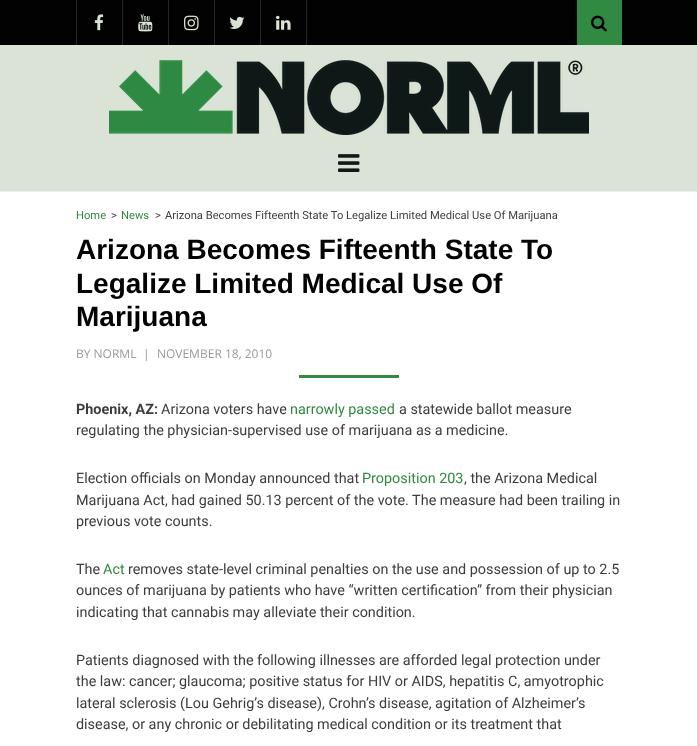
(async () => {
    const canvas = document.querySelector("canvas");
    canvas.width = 697;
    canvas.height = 746;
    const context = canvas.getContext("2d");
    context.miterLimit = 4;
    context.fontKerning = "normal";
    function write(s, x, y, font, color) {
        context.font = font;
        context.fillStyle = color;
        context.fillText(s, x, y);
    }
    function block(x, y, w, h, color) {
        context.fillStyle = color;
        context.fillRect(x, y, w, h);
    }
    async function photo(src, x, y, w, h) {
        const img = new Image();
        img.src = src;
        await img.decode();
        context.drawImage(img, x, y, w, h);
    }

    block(0, 0, 697, 746, "rgb(255, 255, 255)");
    block(0, 0, 697, 45, "rgb(2, 2, 2)");
    block(76, 0, 1, 45, "rgb(38, 38, 38)");
    await photo("media/1.png", 94, 14, 10, 17);
    block(122, 0, 1, 45, "rgb(38, 38, 38)");
    await photo("media/2.png", 138, 14, 15, 18);
    block(168, 0, 1, 45, "rgb(38, 38, 38)");
    await photo("media/3.png", 184, 15, 15, 16);
    block(214, 0, 1, 45, "rgb(38, 38, 38)");
    await photo("media/4.png", 229, 16, 16, 13);
    block(306, 0, 1, 45, "rgb(38, 38, 38)");
    block(260, 0, 1, 45, "rgb(38, 38, 38)");
    await photo("media/5.png", 276, 15, 15, 15);
    block(577, 0, 45, 45, "rgb(48, 138, 66)");
    await photo("media/6.png", 591, 15, 16, 17);
    block(0, 45, 697, 146, "rgb(219, 227, 214)");
    block(0, 191, 697, 1, "rgb(238, 238, 238)");
    await photo("media/7.png", 109, 60, 480, 75);
    await photo("media/8.png", 338, 154, 22, 18);
    write("Home", 76, 219, "11.2px Roboto", "rgb(48, 138, 66)");
    write(">", 111, 219, "11.2px Roboto", "rgb(61, 61, 61)");
    write("News", 121, 219, "11.2px Roboto", "rgb(48, 138, 66)");
    write(">", 155, 219, "11.2px Roboto", "rgb(61, 61, 61)");
    write("Arizona Becomes Fifteenth State To Legalize Limited Medical Use Of Marijuana", 165, 219, "11.2px Roboto", "rgb(61, 61, 61)");
    write("Arizona Becomes Fifteenth State To", 76, 259, "bold 28px Arimo", "rgb(2, 2, 2)");
    write("Legalize Limited Medical Use Of", 76, 293, "bold 28px Arimo", "rgb(2, 2, 2)");
    write("Marijuana", 76, 326, "bold 28px Arimo", "rgb(2, 2, 2)");
    write("BY NORML", 76, 358, "12px Open Sans", "rgb(153, 153, 153)");
    write("|", 143, 358, "12px Open Sans", "rgb(153, 153, 153)");
    write("NOVEMBER 18, 2010", 157, 358, "12px Open Sans", "rgb(153, 153, 153)");
    block(299, 375, 100, 3, "rgb(48, 138, 66)");
    write("Phoenix, AZ:", 76, 414, "bold 14.4px Roboto", "rgb(61, 61, 61)");
    write("Arizona voters have", 161, 414, "14.4px Roboto", "rgb(61, 61, 61)");
    write("narrowly passed", 290, 414, "14.4px Roboto", "rgb(48, 138, 66)");
    write("a statewide ballot measure", 399, 414, "14.4px Roboto", "rgb(61, 61, 61)");
    write("regulating the physician-supervised use of marijuana as a medicine.", 76, 435, "14.4px Roboto", "rgb(61, 61, 61)");
    write("Election officials on Monday announced that", 76, 483, "14.4px Roboto", "rgb(61, 61, 61)");
    write("Proposition 203", 362, 483, "14.4px Roboto", "rgb(48, 138, 66)");
    write(", the Arizona Medical", 464, 483, "14.4px Roboto", "rgb(61, 61, 61)");
    write("Marijuana Act, had gained 50.13 percent of the vote. The measure had been trailing in", 76, 505, "14.4px Roboto", "rgb(61, 61, 61)");
    write("previous vote counts.", 76, 526, "14.4px Roboto", "rgb(61, 61, 61)");
    write("The", 76, 574, "14.4px Roboto", "rgb(61, 61, 61)");
    write("Act", 103, 574, "14.4px Roboto", "rgb(48, 138, 66)");
    write("removes state-level criminal penalties on the use and possession of up to 2.5", 128, 574, "14.4px Roboto", "rgb(61, 61, 61)");
    write("ounces of marijuana by patients who have “written certification” from their physician", 76, 595, "14.4px Roboto", "rgb(61, 61, 61)");
    write("indicating that cannabis may alleviate their condition.", 76, 617, "14.4px Roboto", "rgb(61, 61, 61)");
    write("Patients diagnosed with the following illnesses are afforded legal protection under", 76, 665, "14.4px Roboto", "rgb(61, 61, 61)");
    write("the law: cancer; glaucoma; positive status for HIV or AIDS, hepatitis C, amyotrophic", 76, 686, "14.4px Roboto", "rgb(61, 61, 61)");
    write("lateral sclerosis (Lou Gehrig’s disease), Crohn’s disease, agitation of Alzheimer’s", 76, 708, "14.4px Roboto", "rgb(61, 61, 61)");
    write("disease, or any chronic or debilitating medical condition or its treatment that", 76, 729, "14.4px Roboto", "rgb(61, 61, 61)");
})();
